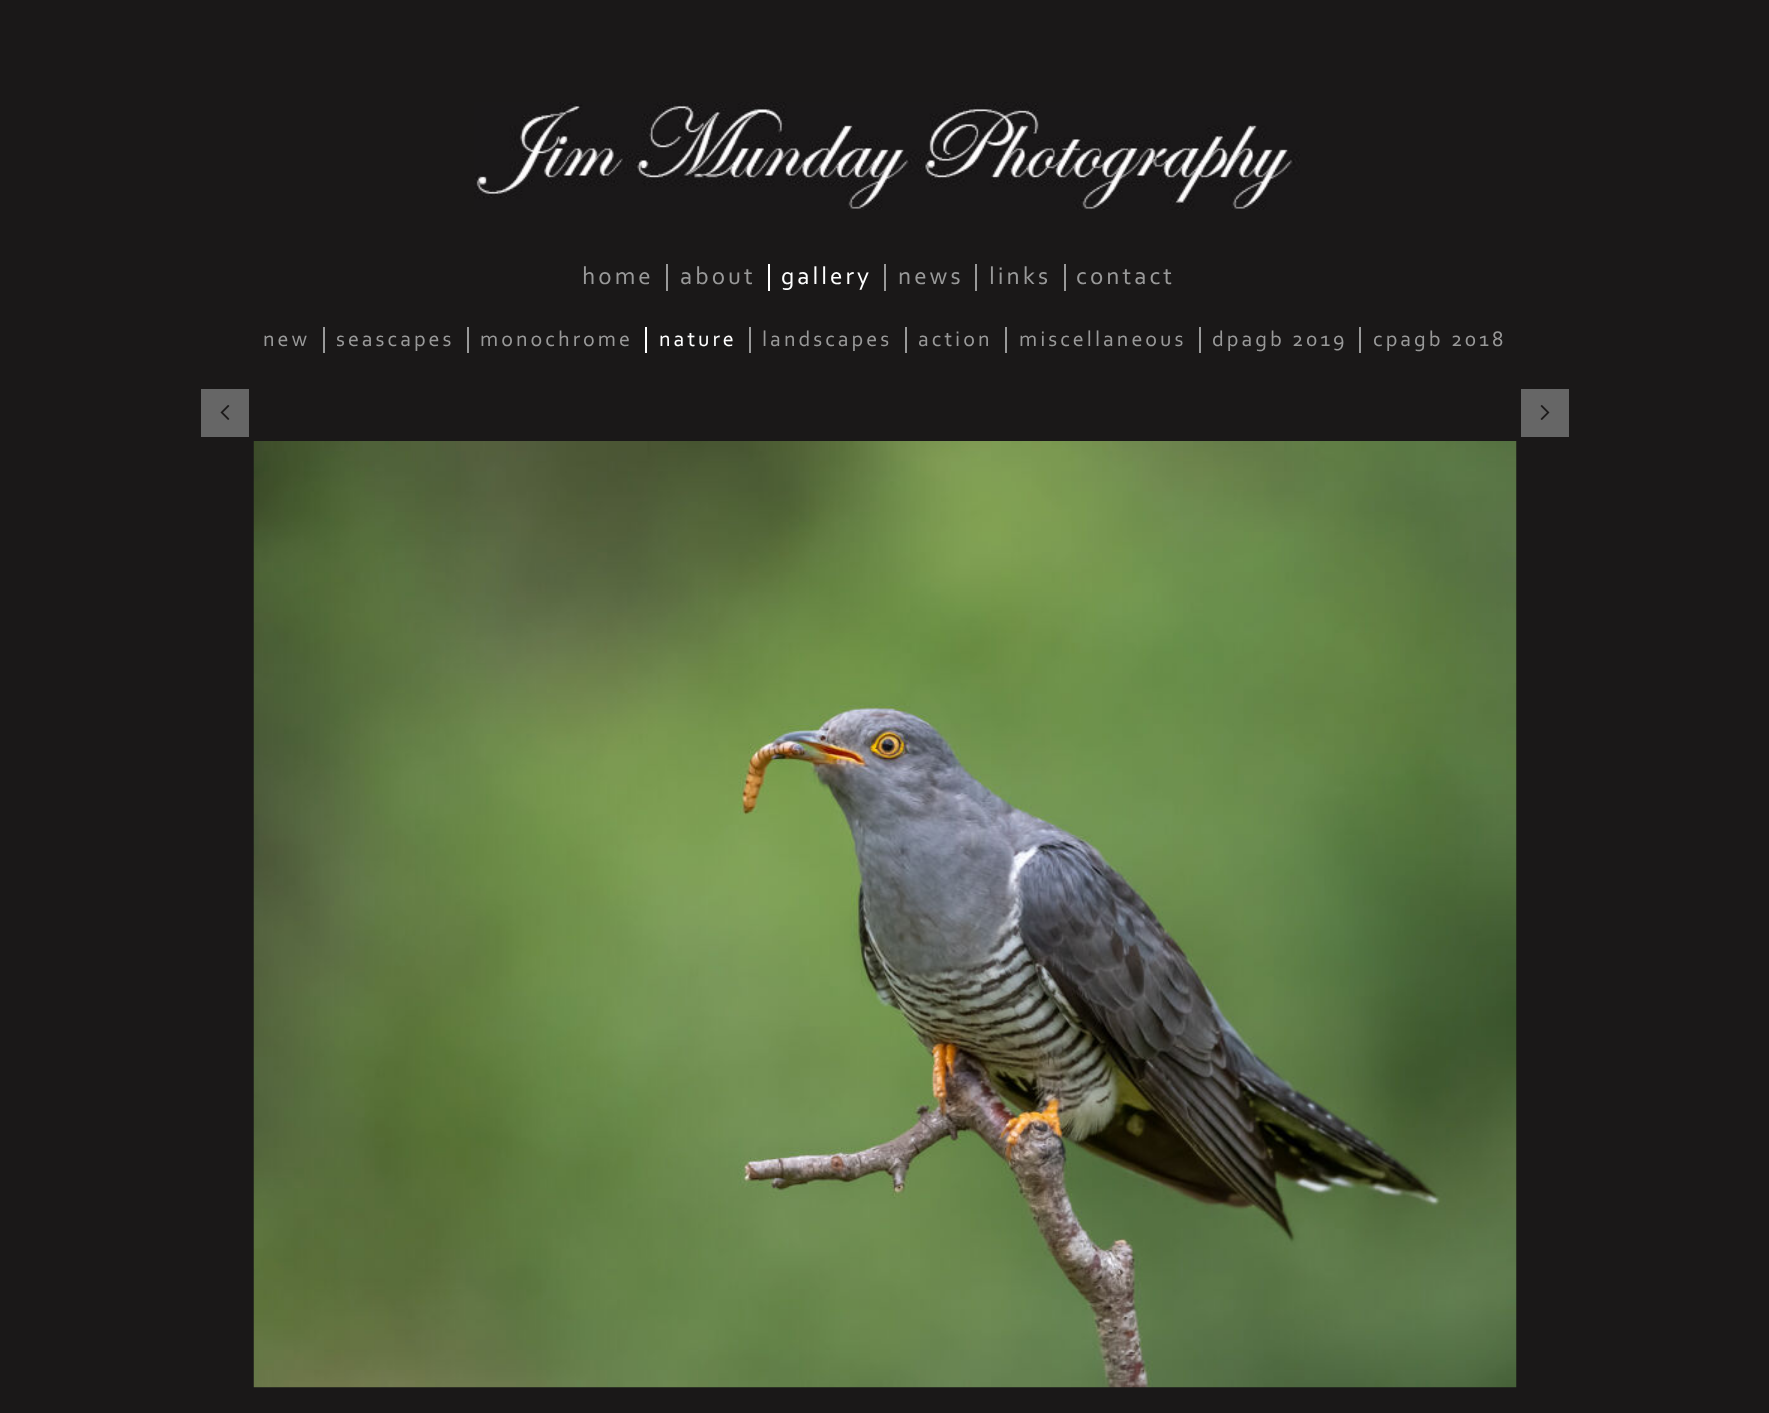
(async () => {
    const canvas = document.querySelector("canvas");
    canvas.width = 1769;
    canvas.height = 1413;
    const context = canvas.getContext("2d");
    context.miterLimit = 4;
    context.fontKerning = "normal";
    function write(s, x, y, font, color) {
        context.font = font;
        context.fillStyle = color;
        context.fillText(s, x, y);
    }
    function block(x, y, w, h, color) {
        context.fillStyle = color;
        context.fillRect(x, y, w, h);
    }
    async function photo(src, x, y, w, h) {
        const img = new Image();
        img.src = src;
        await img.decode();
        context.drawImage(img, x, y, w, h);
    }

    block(0, 0, 1769, 1413, "rgb(26, 24, 24)");
    await photo("media/1.png", 474, 102, 826, 108);
    context.letterSpacing = "3px";
    write("home", 582, 284, "25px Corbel", "rgb(153, 153, 153)");
    block(666, 264, 2, 27, "rgb(153, 153, 153)");
    write("about", 680, 284, "25px Corbel", "rgb(153, 153, 153)");
    block(768, 264, 2, 27, "rgb(255, 255, 255)");
    write("gallery", 781, 284, "25px Corbel", "rgb(255, 255, 255)");
    block(884, 264, 2, 27, "rgb(153, 153, 153)");
    write("news", 898, 284, "25px Corbel", "rgb(153, 153, 153)");
    block(975, 264, 2, 27, "rgb(153, 153, 153)");
    write("links", 989, 284, "25px Corbel", "rgb(153, 153, 153)");
    block(1064, 264, 2, 27, "rgb(153, 153, 153)");
    write("contact", 1076, 284, "25px Corbel", "rgb(153, 153, 153)");
    write("new", 263, 346, "22px Corbel", "rgb(153, 153, 153)");
    block(323, 327, 2, 26, "rgb(153, 153, 153)");
    write("seascapes", 336, 346, "22px Corbel", "rgb(153, 153, 153)");
    block(467, 327, 2, 26, "rgb(153, 153, 153)");
    write("monochrome", 480, 346, "22px Corbel", "rgb(153, 153, 153)");
    block(645, 327, 2, 26, "rgb(255, 255, 255)");
    write("nature", 659, 346, "22px Corbel", "rgb(255, 255, 255)");
    block(749, 327, 2, 26, "rgb(153, 153, 153)");
    write("landscapes", 762, 346, "22px Corbel", "rgb(153, 153, 153)");
    block(905, 327, 2, 26, "rgb(153, 153, 153)");
    write("action", 918, 346, "22px Corbel", "rgb(153, 153, 153)");
    block(1005, 327, 2, 26, "rgb(153, 153, 153)");
    write("miscellaneous", 1019, 346, "22px Corbel", "rgb(153, 153, 153)");
    block(1199, 327, 2, 26, "rgb(153, 153, 153)");
    write("dpagb 2019", 1212, 346, "22px Corbel", "rgb(153, 153, 153)");
    block(1359, 327, 2, 26, "rgb(153, 153, 153)");
    write("cpagb 2018", 1373, 346, "22px Corbel", "rgb(153, 153, 153)");
    block(201, 389, 48, 48, "rgb(102, 102, 102)");
    await photo("media/2.png", 220, 405, 10, 15);
    block(1521, 389, 48, 48, "rgb(102, 102, 102)");
    await photo("media/3.png", 1540, 405, 10, 15);
    await photo("media/4.png", 253, 441, 1264, 947);
})();
